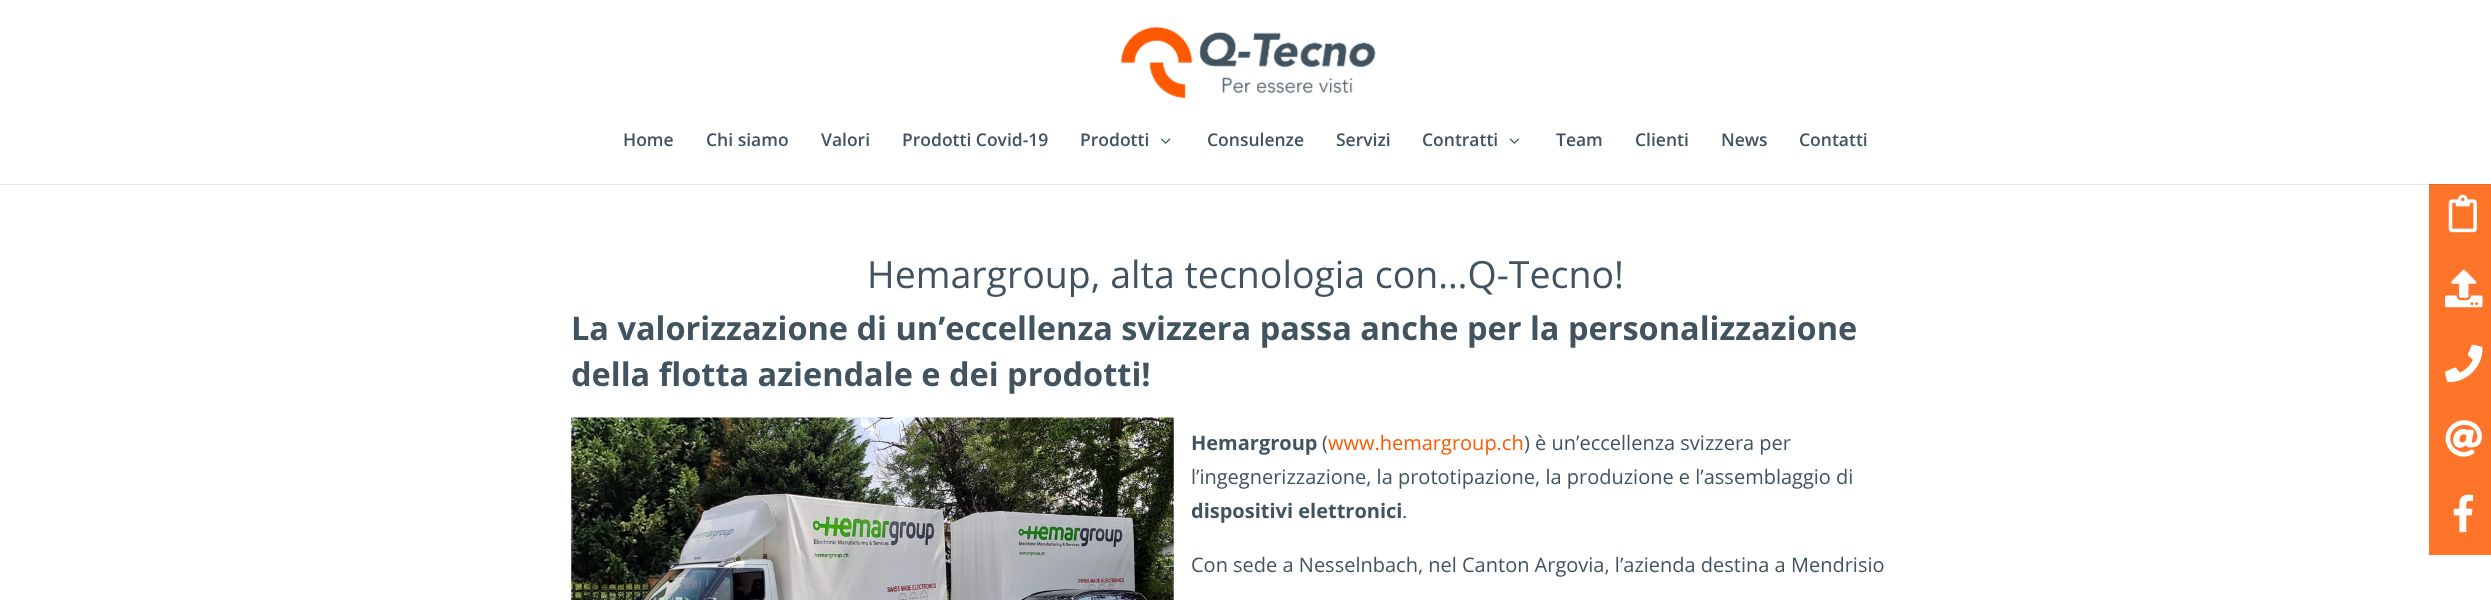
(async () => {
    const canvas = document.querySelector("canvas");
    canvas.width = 2491;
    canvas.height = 600;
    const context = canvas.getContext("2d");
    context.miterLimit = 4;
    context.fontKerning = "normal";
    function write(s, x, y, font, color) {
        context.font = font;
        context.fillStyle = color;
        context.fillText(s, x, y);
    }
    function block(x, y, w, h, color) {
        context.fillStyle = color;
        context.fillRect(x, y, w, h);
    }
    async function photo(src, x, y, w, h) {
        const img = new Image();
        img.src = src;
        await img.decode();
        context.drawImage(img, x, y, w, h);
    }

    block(0, 0, 2491, 600, "rgb(255, 255, 255)");
    block(0, 184, 2429, 1, "rgb(230, 230, 230)");
    await photo("media/1.png", 1121, 26, 255, 73);
    write("Home", 623, 146, "600 17.5px Open Sans", "rgb(65, 83, 94)");
    write("Chi siamo", 706, 146, "600 17.5px Open Sans", "rgb(65, 83, 94)");
    write("Valori", 821, 146, "600 17.5px Open Sans", "rgb(65, 83, 94)");
    write("Prodotti Covid-19", 902, 146, "600 17.5px Open Sans", "rgb(65, 83, 94)");
    write("Prodotti", 1080, 146, "600 17.5px Open Sans", "rgb(65, 83, 94)");
    await photo("media/2.png", 1161, 138, 10, 6);
    write("Consulenze", 1207, 146, "600 17.5px Open Sans", "rgb(65, 83, 94)");
    write("Servizi", 1336, 146, "600 17.5px Open Sans", "rgb(65, 83, 94)");
    write("Contratti", 1422, 146, "600 17.5px Open Sans", "rgb(65, 83, 94)");
    await photo("media/3.png", 1509, 138, 10, 6);
    write("Team", 1556, 146, "600 17.5px Open Sans", "rgb(65, 83, 94)");
    write("Clienti", 1635, 146, "600 17.5px Open Sans", "rgb(65, 83, 94)");
    write("News", 1721, 146, "600 17.5px Open Sans", "rgb(65, 83, 94)");
    write("Contatti", 1799, 146, "600 17.5px Open Sans", "rgb(65, 83, 94)");
    write("Hemargroup, alta tecnologia con…Q-Tecno!", 867, 288, "37.5px Open Sans", "rgb(65, 83, 94)");
    write("La valorizzazione di un’eccellenza svizzera passa anche per la personalizzazione", 571, 340, "bold 32.5px Open Sans", "rgb(65, 83, 94)");
    write("della flotta aziendale e dei prodotti!", 571, 386, "bold 32.5px Open Sans", "rgb(65, 83, 94)");
    await photo("media/4.png", 571, 417, 603, 183);
    write("Hemargroup", 1191, 450, "bold 20px Open Sans", "rgb(65, 83, 94)");
    write("(", 1322, 450, "20px Open Sans", "rgb(65, 83, 94)");
    write("www.hemargroup.ch", 1328, 450, "20px Open Sans", "rgb(254, 89, 0)");
    write(") è un’eccellenza svizzera per", 1524, 450, "20px Open Sans", "rgb(65, 83, 94)");
    write("l’ingegnerizzazione, la prototipazione, la produzione e l’assemblaggio di", 1191, 484, "20px Open Sans", "rgb(65, 83, 94)");
    write("dispositivi elettronici", 1191, 518, "bold 20px Open Sans", "rgb(65, 83, 94)");
    write(".", 1402, 518, "20px Open Sans", "rgb(65, 83, 94)");
    write("Con sede a Nesselnbach, nel Canton Argovia, l’azienda destina a Mendrisio", 1191, 572, "20px Open Sans", "rgb(65, 83, 94)");
    block(2429, 185, 62, 370, "rgb(254, 116, 41)");
    block(2429, 184, 62, 1, "rgb(229, 104, 37)");
    await photo("media/5.png", 2448, 194, 29, 39);
    await photo("media/6.png", 2445, 269, 38, 39);
    await photo("media/7.png", 2445, 344, 38, 39);
    await photo("media/8.png", 2445, 420, 37, 37);
    await photo("media/9.png", 2453, 494, 21, 39);
})();
